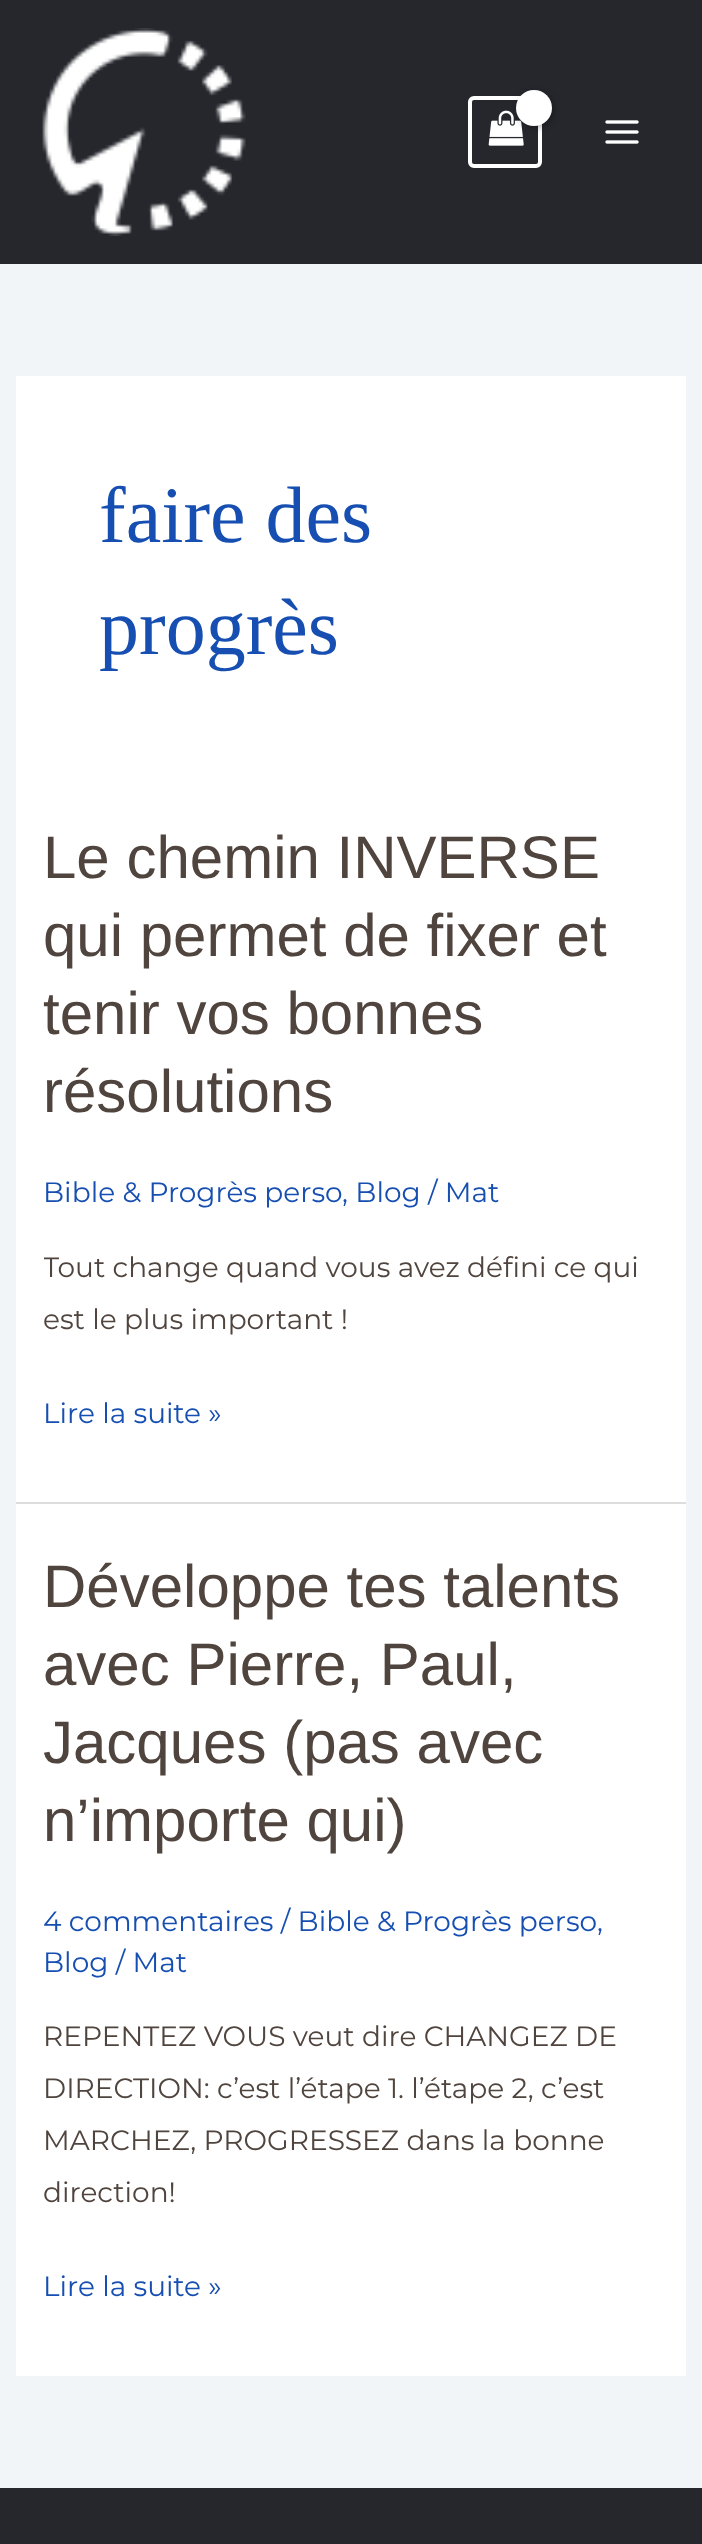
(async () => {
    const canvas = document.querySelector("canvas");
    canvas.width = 702;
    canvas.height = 2544;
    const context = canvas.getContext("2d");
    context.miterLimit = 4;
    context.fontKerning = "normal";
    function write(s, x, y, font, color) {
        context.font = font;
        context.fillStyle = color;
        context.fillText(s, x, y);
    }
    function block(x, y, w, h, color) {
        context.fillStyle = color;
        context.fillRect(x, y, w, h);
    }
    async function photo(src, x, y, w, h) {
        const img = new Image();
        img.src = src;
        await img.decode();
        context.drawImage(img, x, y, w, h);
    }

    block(0, 0, 702, 2544, "rgb(242, 245, 247)");
    block(0, 0, 702, 264, "rgb(37, 39, 45)");
    await photo("media/1.png", 42, 28, 204, 208);
    context.beginPath();
    context.roundRect(470, 98, 70, 68, 4);
    context.strokeStyle = "rgb(255, 255, 255)";
    context.lineWidth = 4;
    context.stroke();
    await photo("media/2.png", 488, 110, 36, 36);
    context.fillStyle = "rgba(0, 0, 0, 0.3)";
    context.filter = "blur(3px)";
    context.beginPath();
    context.roundRect(518, 92, 36, 36, 18);
    context.fill();
    context.filter = "none";
    context.fillStyle = "rgb(255, 255, 255)";
    context.beginPath();
    context.arc(534, 108, 18, 0, Math.PI * 2);
    context.fill();
    await photo("media/3.png", 605, 120, 34, 24);
    block(16, 376, 670, 1126, "rgb(255, 255, 255)");
    write("faire des", 99, 542, "80px Liberation Serif", "rgb(22, 79, 177)");
    write("progrès", 99, 654, "80px Liberation Serif", "rgb(22, 79, 177)");
    block(16, 1502, 670, 2, "rgb(221, 221, 221)");
    write("Le chemin INVERSE", 43, 878, "60px Liberation Sans", "rgb(80, 68, 62)");
    write("qui permet de fixer et", 43, 956, "60px Liberation Sans", "rgb(80, 68, 62)");
    write("tenir vos bonnes", 43, 1034, "60px Liberation Sans", "rgb(80, 68, 62)");
    write("résolutions", 43, 1112, "60px Liberation Sans", "rgb(80, 68, 62)");
    write("Bible & Progrès perso", 43, 1202, "28px Montserrat", "rgb(22, 79, 177)");
    write(", Blog / Mat", 342, 1202, "28px Montserrat", "rgb(22, 79, 177)");
    context.save();
    context.beginPath();
    context.rect(44, 818, 614, 642);
    context.clip();
    write("Tout change quand vous avez défini ce qui", 43, 1277, "28px Montserrat", "rgb(80, 68, 62)");
    context.restore();
    write("est le plus important !", 43, 1329, "28px Montserrat", "rgb(80, 68, 62)");
    write("Lire la suite »", 43, 1423, "28px Montserrat", "rgb(22, 79, 177)");
    block(16, 1504, 670, 872, "rgb(255, 255, 255)");
    write("Développe tes talents", 43, 1607, "60px Liberation Sans", "rgb(80, 68, 62)");
    write("avec Pierre, Paul,", 43, 1685, "60px Liberation Sans", "rgb(80, 68, 62)");
    write("Jacques (pas avec", 43, 1763, "60px Liberation Sans", "rgb(80, 68, 62)");
    write("n’importe qui)", 43, 1841, "60px Liberation Sans", "rgb(80, 68, 62)");
    write("4 commentaires / Bible & Progrès perso", 43, 1931, "28px Montserrat", "rgb(22, 79, 177)");
    write(",", 597, 1931, "28px Montserrat", "rgb(22, 79, 177)");
    write("Blog / Mat", 43, 1972, "28px Montserrat", "rgb(22, 79, 177)");
    write("REPENTEZ VOUS veut dire CHANGEZ DE", 43, 2046, "28px Montserrat", "rgb(80, 68, 62)");
    write("DIRECTION: c’est l’étape 1. l’étape 2, c’est", 43, 2098, "28px Montserrat", "rgb(80, 68, 62)");
    write("MARCHEZ, PROGRESSEZ dans la bonne", 43, 2150, "28px Montserrat", "rgb(80, 68, 62)");
    write("direction!", 43, 2202, "28px Montserrat", "rgb(80, 68, 62)");
    write("Lire la suite »", 43, 2296, "28px Montserrat", "rgb(22, 79, 177)");
    block(0, 2488, 702, 56, "rgb(37, 39, 45)");
})();
